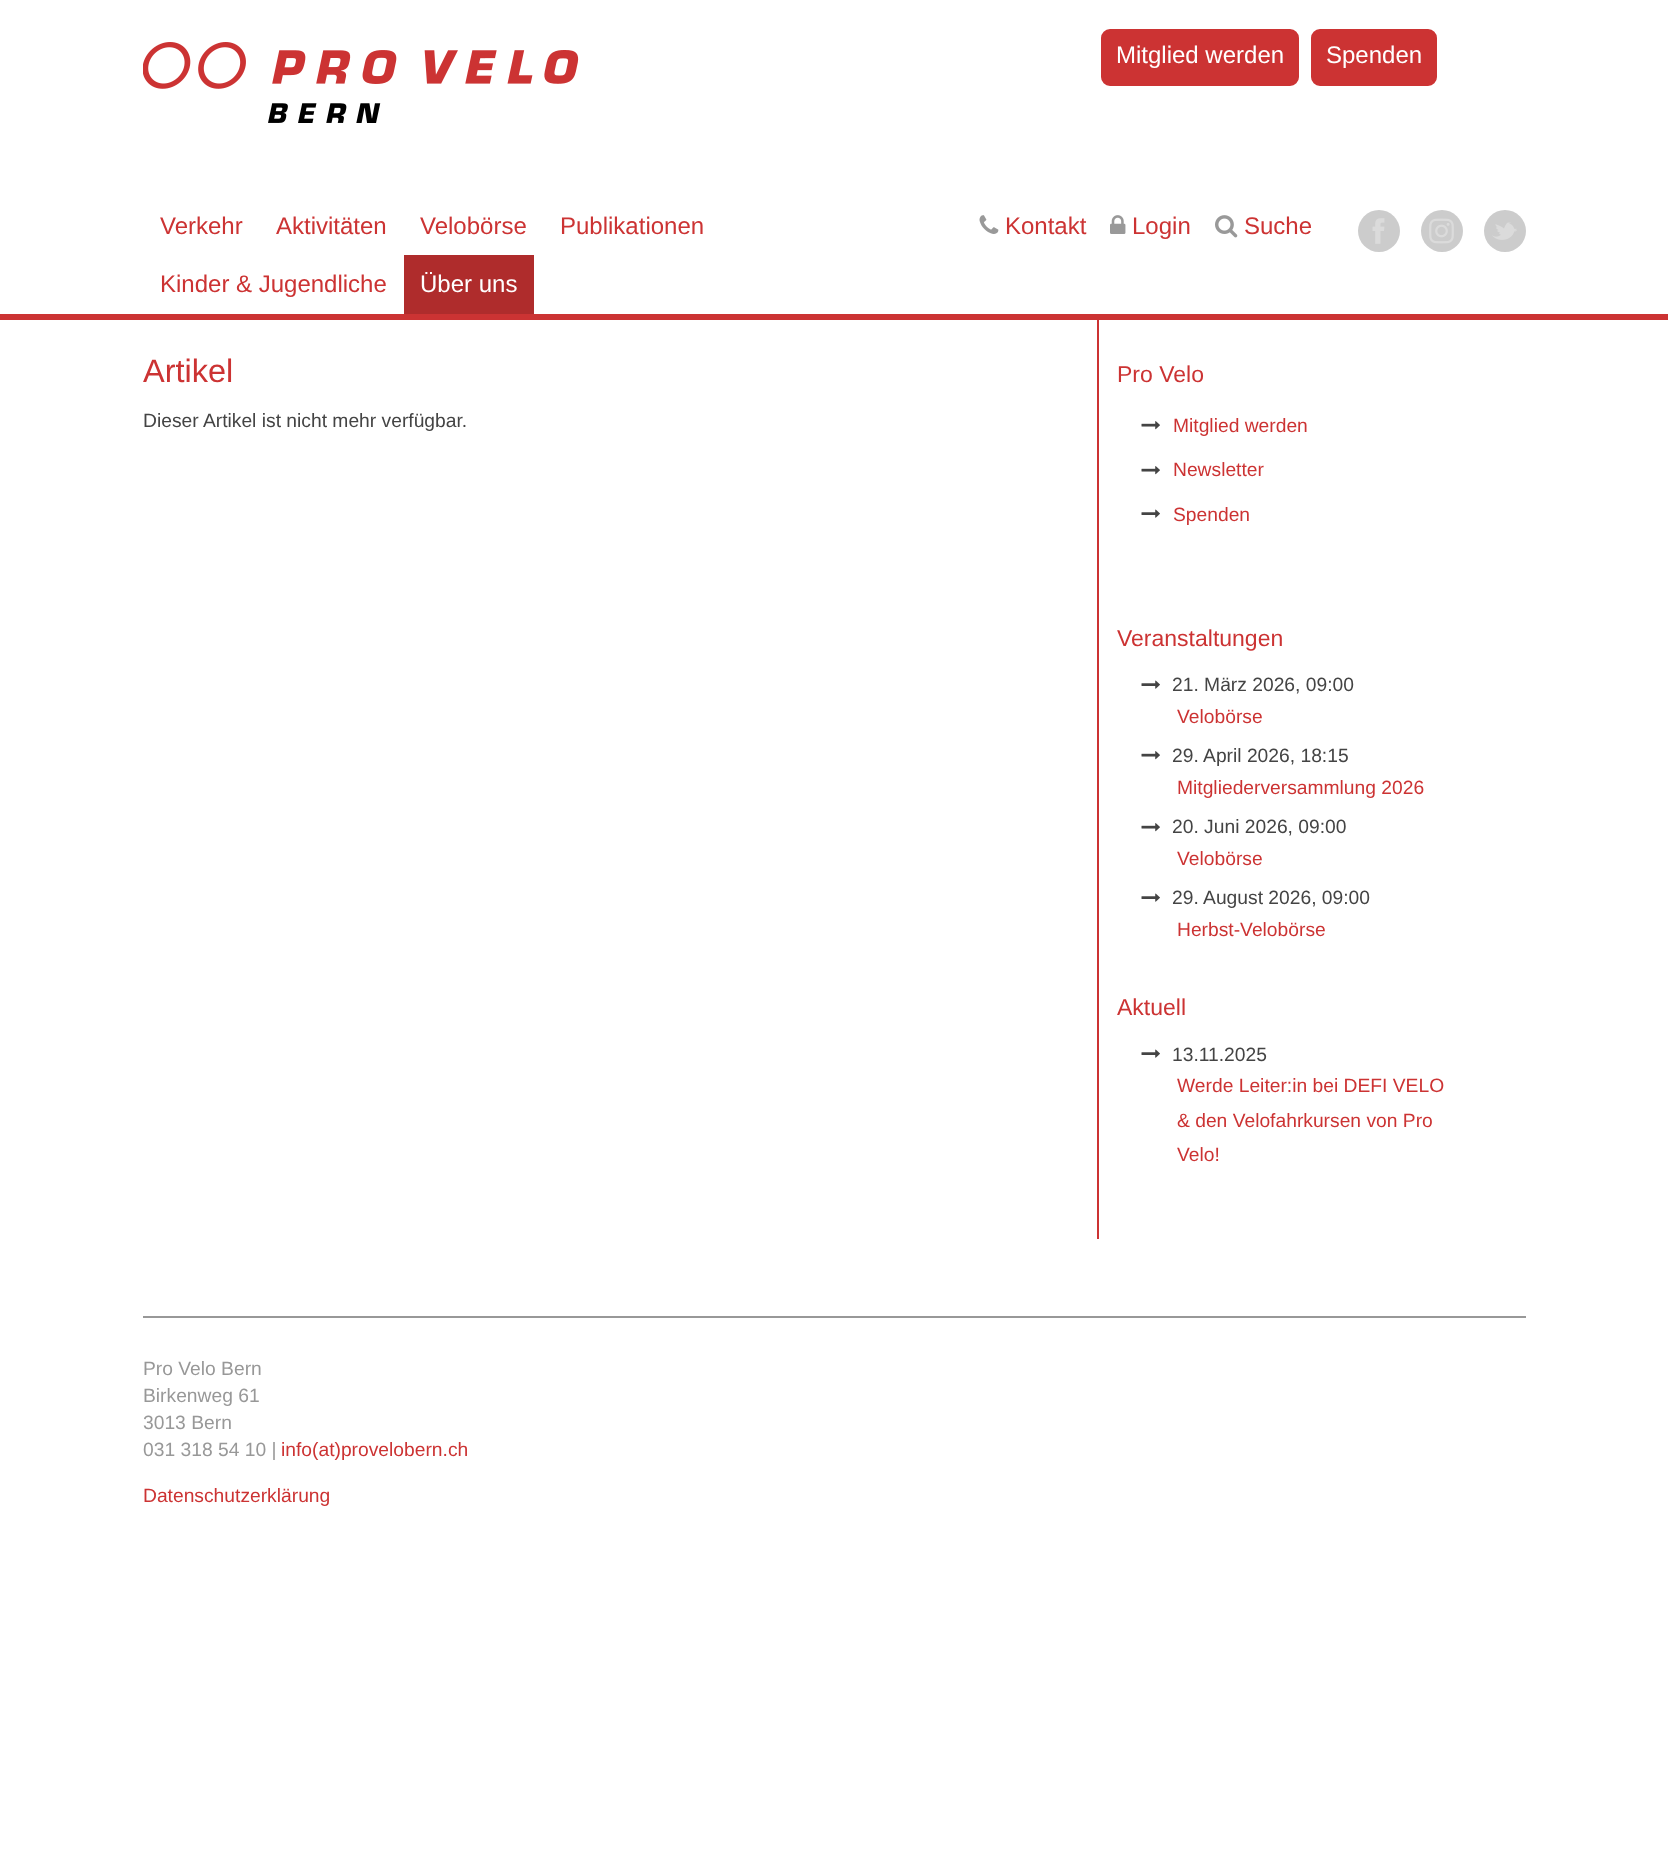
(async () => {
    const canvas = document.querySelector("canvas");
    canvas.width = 1668;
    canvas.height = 1868;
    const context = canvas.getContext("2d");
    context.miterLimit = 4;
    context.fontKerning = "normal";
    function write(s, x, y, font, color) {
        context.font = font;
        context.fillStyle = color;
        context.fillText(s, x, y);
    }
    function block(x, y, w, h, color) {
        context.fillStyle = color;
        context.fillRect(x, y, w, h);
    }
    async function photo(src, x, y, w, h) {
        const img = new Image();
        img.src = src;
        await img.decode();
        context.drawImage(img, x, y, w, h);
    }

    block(0, 0, 1668, 1868, "rgb(255, 255, 255)");
    await photo("media/1.png", 143, 42, 436, 81);
    context.fillStyle = "rgb(204, 51, 51)";
    context.beginPath();
    context.roundRect(1102.5, 30.5, 195, 54, 7.5);
    context.fill();
    context.strokeStyle = "rgb(204, 51, 51)";
    context.lineWidth = 3;
    context.stroke();
    write("Mitglied werden", 1116, 63, "24px Liberation Sans", "rgb(255, 255, 255)");
    context.fillStyle = "rgb(204, 51, 51)";
    context.beginPath();
    context.roundRect(1312.5, 30.5, 123, 54, 7.5);
    context.fill();
    context.stroke();
    write("Spenden", 1326, 63, "24px Liberation Sans", "rgb(255, 255, 255)");
    block(0, 314, 1668, 6, "rgb(204, 51, 51)");
    write("Verkehr", 160, 234, "24px Liberation Sans", "rgb(204, 51, 51)");
    write("Aktivitäten", 276, 234, "24px Liberation Sans", "rgb(204, 51, 51)");
    write("Velobörse", 420, 234, "24px Liberation Sans", "rgb(204, 51, 51)");
    write("Publikationen", 560, 234, "24px Liberation Sans", "rgb(204, 51, 51)");
    await photo("media/2.png", 979, 215, 20, 19);
    write("Kontakt", 1005, 234, "24px Liberation Sans", "rgb(204, 51, 51)");
    await photo("media/3.png", 1110, 215, 16, 19);
    write("Login", 1132, 234, "24px Liberation Sans", "rgb(204, 51, 51)");
    await photo("media/4.png", 1215, 215, 23, 23);
    write("Suche", 1244, 234, "24px Liberation Sans", "rgb(204, 51, 51)");
    context.fillStyle = "rgb(204, 204, 204)";
    context.beginPath();
    context.arc(1379, 231, 21, 0, Math.PI * 2);
    context.fill();
    await photo("media/5.png", 1372, 218, 13, 26);
    context.beginPath();
    context.arc(1442, 231, 21, 0, Math.PI * 2);
    context.fill();
    await photo("media/6.png", 1429, 218, 25, 26);
    context.beginPath();
    context.arc(1505, 231, 21, 0, Math.PI * 2);
    context.fill();
    await photo("media/7.png", 1492, 222, 25, 18);
    write("Kinder & Jugendliche", 160, 292, "24px Liberation Sans", "rgb(204, 51, 51)");
    block(404, 255, 130, 59, "rgb(175, 44, 44)");
    write("Über uns", 420, 292, "24px Liberation Sans", "rgb(255, 255, 255)");
    write("Artikel", 143, 382, "32.5px Liberation Sans", "rgb(204, 51, 51)");
    write("Dieser Artikel ist nicht mehr verfügbar.", 143, 427, "19.25px Liberation Sans", "rgb(68, 68, 68)");
    block(1097, 320, 2, 919, "rgb(204, 51, 51)");
    write("Pro Velo", 1117, 382, "23px Liberation Sans", "rgb(204, 51, 51)");
    await photo("media/8.png", 1141, 421, 19, 9);
    write("Mitglied werden", 1173, 432, "19.25px Liberation Sans", "rgb(204, 51, 51)");
    await photo("media/8.png", 1141, 466, 19, 9);
    write("Newsletter", 1173, 476, "19.25px Liberation Sans", "rgb(204, 51, 51)");
    await photo("media/9.png", 1141, 509, 19, 9);
    write("Spenden", 1173, 521, "19.25px Liberation Sans", "rgb(204, 51, 51)");
    write("Veranstaltungen", 1117, 646, "23px Liberation Sans", "rgb(204, 51, 51)");
    await photo("media/9.png", 1141, 680, 19, 9);
    write("21. März 2026, 09:00", 1172, 691, "19.25px Liberation Sans", "rgb(68, 68, 68)");
    write("Velobörse", 1177, 723, "19.25px Liberation Sans", "rgb(204, 51, 51)");
    await photo("media/8.png", 1141, 751, 19, 9);
    write("29. April 2026, 18:15", 1172, 762, "19.25px Liberation Sans", "rgb(68, 68, 68)");
    write("Mitgliederversammlung 2026", 1177, 794, "19.25px Liberation Sans", "rgb(204, 51, 51)");
    await photo("media/8.png", 1141, 823, 19, 9);
    write("20. Juni 2026, 09:00", 1172, 833, "19.25px Liberation Sans", "rgb(68, 68, 68)");
    write("Velobörse", 1177, 865, "19.25px Liberation Sans", "rgb(204, 51, 51)");
    await photo("media/9.png", 1141, 893, 19, 9);
    write("29. August 2026, 09:00", 1172, 904, "19.25px Liberation Sans", "rgb(68, 68, 68)");
    write("Herbst-Velobörse", 1177, 936, "19.25px Liberation Sans", "rgb(204, 51, 51)");
    write("Aktuell", 1117, 1015, "23px Liberation Sans", "rgb(204, 51, 51)");
    await photo("media/9.png", 1141, 1049, 19, 9);
    write("13.11.2025", 1172, 1061, "19.25px Liberation Sans", "rgb(68, 68, 68)");
    write("Werde Leiter:in bei DEFI VELO", 1177, 1092, "19.25px Liberation Sans", "rgb(204, 51, 51)");
    write("& den Velofahrkursen von Pro", 1177, 1127, "19.25px Liberation Sans", "rgb(204, 51, 51)");
    write("Velo!", 1177, 1161, "19.25px Liberation Sans", "rgb(204, 51, 51)");
    block(143, 1316, 1383, 2, "rgb(152, 152, 152)");
    write("Pro Velo Bern", 143, 1375, "19.25px Liberation Sans", "rgb(152, 152, 152)");
    write("Birkenweg 61", 143, 1402, "19.25px Liberation Sans", "rgb(152, 152, 152)");
    write("3013 Bern", 143, 1429, "19.25px Liberation Sans", "rgb(152, 152, 152)");
    write("031 318 54 10 |", 143, 1456, "19.25px Liberation Sans", "rgb(152, 152, 152)");
    write("info(at)provelobern.ch", 281, 1456, "19.25px Liberation Sans", "rgb(204, 51, 51)");
    write("Datenschutzerklärung", 143, 1502, "19.25px Liberation Sans", "rgb(204, 51, 51)");
})();
